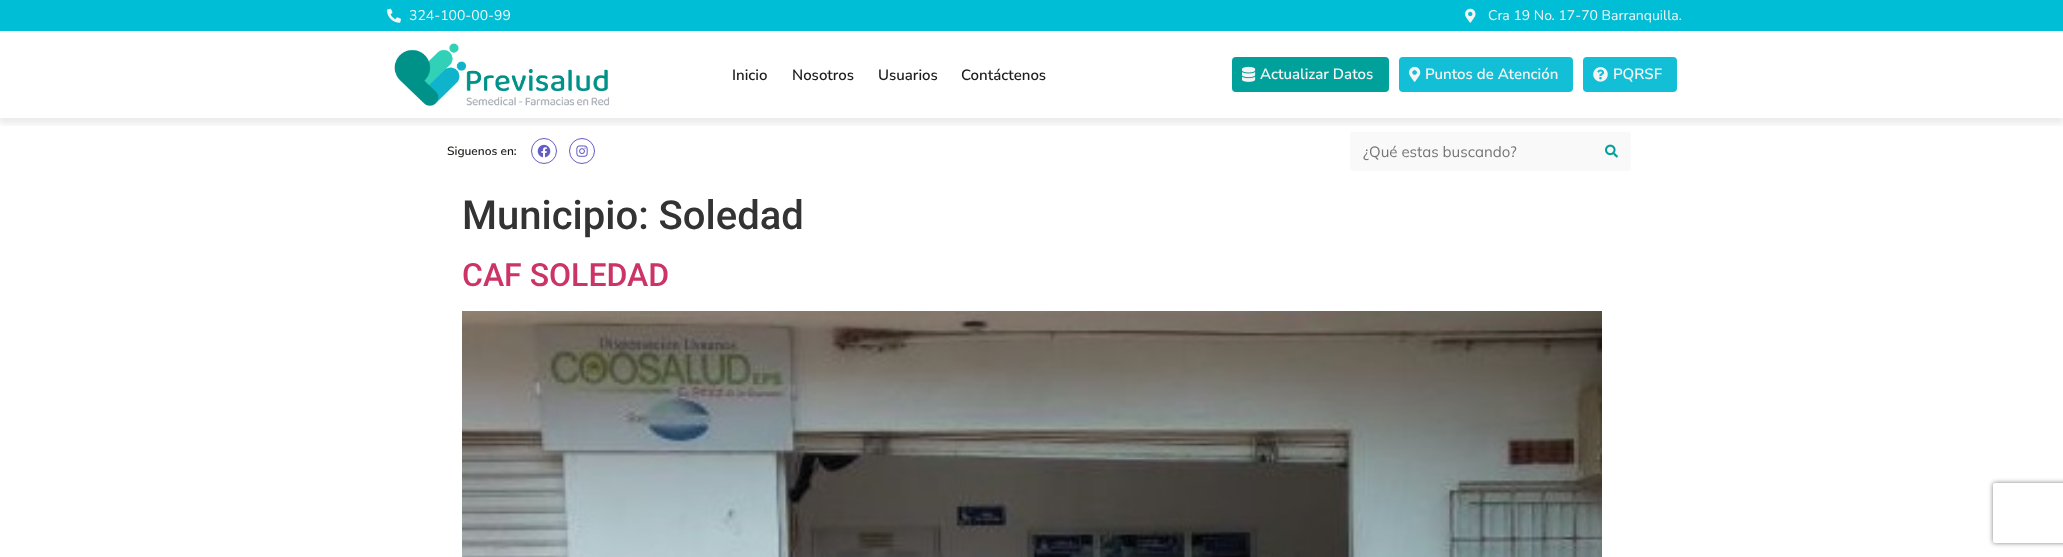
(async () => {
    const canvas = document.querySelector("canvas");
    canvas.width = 2063;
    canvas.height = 557;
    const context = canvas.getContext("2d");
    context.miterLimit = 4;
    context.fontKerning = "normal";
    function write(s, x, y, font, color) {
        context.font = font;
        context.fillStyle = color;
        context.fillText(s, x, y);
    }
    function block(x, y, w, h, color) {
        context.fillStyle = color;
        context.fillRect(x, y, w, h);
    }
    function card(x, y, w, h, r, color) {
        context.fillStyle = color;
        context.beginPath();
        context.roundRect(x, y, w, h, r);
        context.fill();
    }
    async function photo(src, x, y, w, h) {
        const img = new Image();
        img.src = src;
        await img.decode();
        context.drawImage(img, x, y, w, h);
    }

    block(0, 0, 2063, 557, "rgb(255, 255, 255)");
    block(0, 0, 2063, 31, "rgb(0, 190, 214)");
    await photo("media/1.png", 387, 8, 14, 15);
    write("324-100-00-99", 409, 20, "14px Nunito Sans", "rgb(244, 244, 244)");
    await photo("media/2.png", 1465, 8, 11, 15);
    write("Cra 19 No. 17-70 Barranquilla.", 1488, 20, "14px Nunito Sans", "rgb(244, 244, 244)");
    card(1350, 132, 281, 39, 3, "rgb(249, 249, 249)");
    context.save();
    context.beginPath();
    context.rect(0, 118, 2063, 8);
    context.clip();
    context.fillStyle = "rgba(0, 0, 0, 0.08)";
    context.filter = "blur(3px)";
    context.beginPath();
    context.rect(-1, 35, 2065, 89);
    context.fill();
    context.filter = "none";
    context.restore();
    await photo("media/3.png", 394, 43, 216, 63);
    write("Inicio", 732, 80, "600 15px Nunito Sans", "rgb(29, 29, 27)");
    write("Nosotros", 792, 80, "600 15px Nunito Sans", "rgb(29, 29, 27)");
    write("Usuarios", 878, 80, "600 15px Nunito Sans", "rgb(29, 29, 27)");
    write("Contáctenos", 961, 80, "600 15px Nunito Sans", "rgb(29, 29, 27)");
    card(1232, 57, 157, 35, 4, "rgb(0, 161, 155)");
    await photo("media/4.png", 1242, 66, 14, 16);
    write("Actualizar Datos", 1260, 79, "600 15px Nunito Sans", "rgb(244, 244, 244)");
    card(1399, 57, 174, 35, 4, "rgb(19, 191, 214)");
    await photo("media/5.png", 1409, 66, 12, 16);
    write("Puntos de Atención", 1425, 79, "600 15px Nunito Sans", "rgb(244, 244, 244)");
    card(1583, 57, 94, 35, 4, "rgb(19, 191, 214)");
    await photo("media/6.png", 1593, 67, 15, 15);
    write("PQRSF", 1613, 79, "600 15px Nunito Sans", "rgb(244, 244, 244)");
    write("Siguenos en:", 447, 155, "600 12px Nunito Sans", "rgb(29, 29, 27)");
    context.beginPath();
    context.arc(544, 151, 12.5, 0, Math.PI * 2);
    context.strokeStyle = "rgb(101, 93, 198)";
    context.stroke();
    await photo("media/7.png", 537, 144, 14, 14);
    context.beginPath();
    context.arc(582, 151, 12.5, 0, Math.PI * 2);
    context.stroke();
    await photo("media/8.png", 576, 145, 12, 12);
    write("¿Qué estas buscando?", 1363, 157, "15px Mulish", "rgb(117, 117, 116)");
    await photo("media/9.png", 1605, 144, 13, 14);
    write("Municipio: Soledad", 462, 229, "500 40px Roboto", "rgb(51, 51, 51)");
    write("CAF SOLEDAD", 462, 286, "500 32px Roboto", "rgb(204, 51, 102)");
    await photo("media/10.png", 462, 311, 1140, 246);
    context.save();
    context.beginPath();
    context.moveTo(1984, 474);
    context.lineTo(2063, 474);
    context.lineTo(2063, 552);
    context.lineTo(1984, 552);
    context.closePath();
    context.moveTo(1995, 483);
    context.lineTo(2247, 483);
    context.bezierCurveTo(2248, 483, 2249, 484, 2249, 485);
    context.lineTo(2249, 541);
    context.bezierCurveTo(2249, 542, 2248, 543, 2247, 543);
    context.lineTo(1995, 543);
    context.bezierCurveTo(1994, 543, 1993, 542, 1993, 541);
    context.lineTo(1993, 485);
    context.bezierCurveTo(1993, 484, 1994, 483, 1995, 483);
    context.closePath();
    context.clip("evenodd");
    context.fillStyle = "rgb(128, 128, 128)";
    context.filter = "blur(2.5px)";
    context.beginPath();
    context.roundRect(1993, 483, 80, 60, 2);
    context.fill();
    context.filter = "none";
    context.restore();
})();
